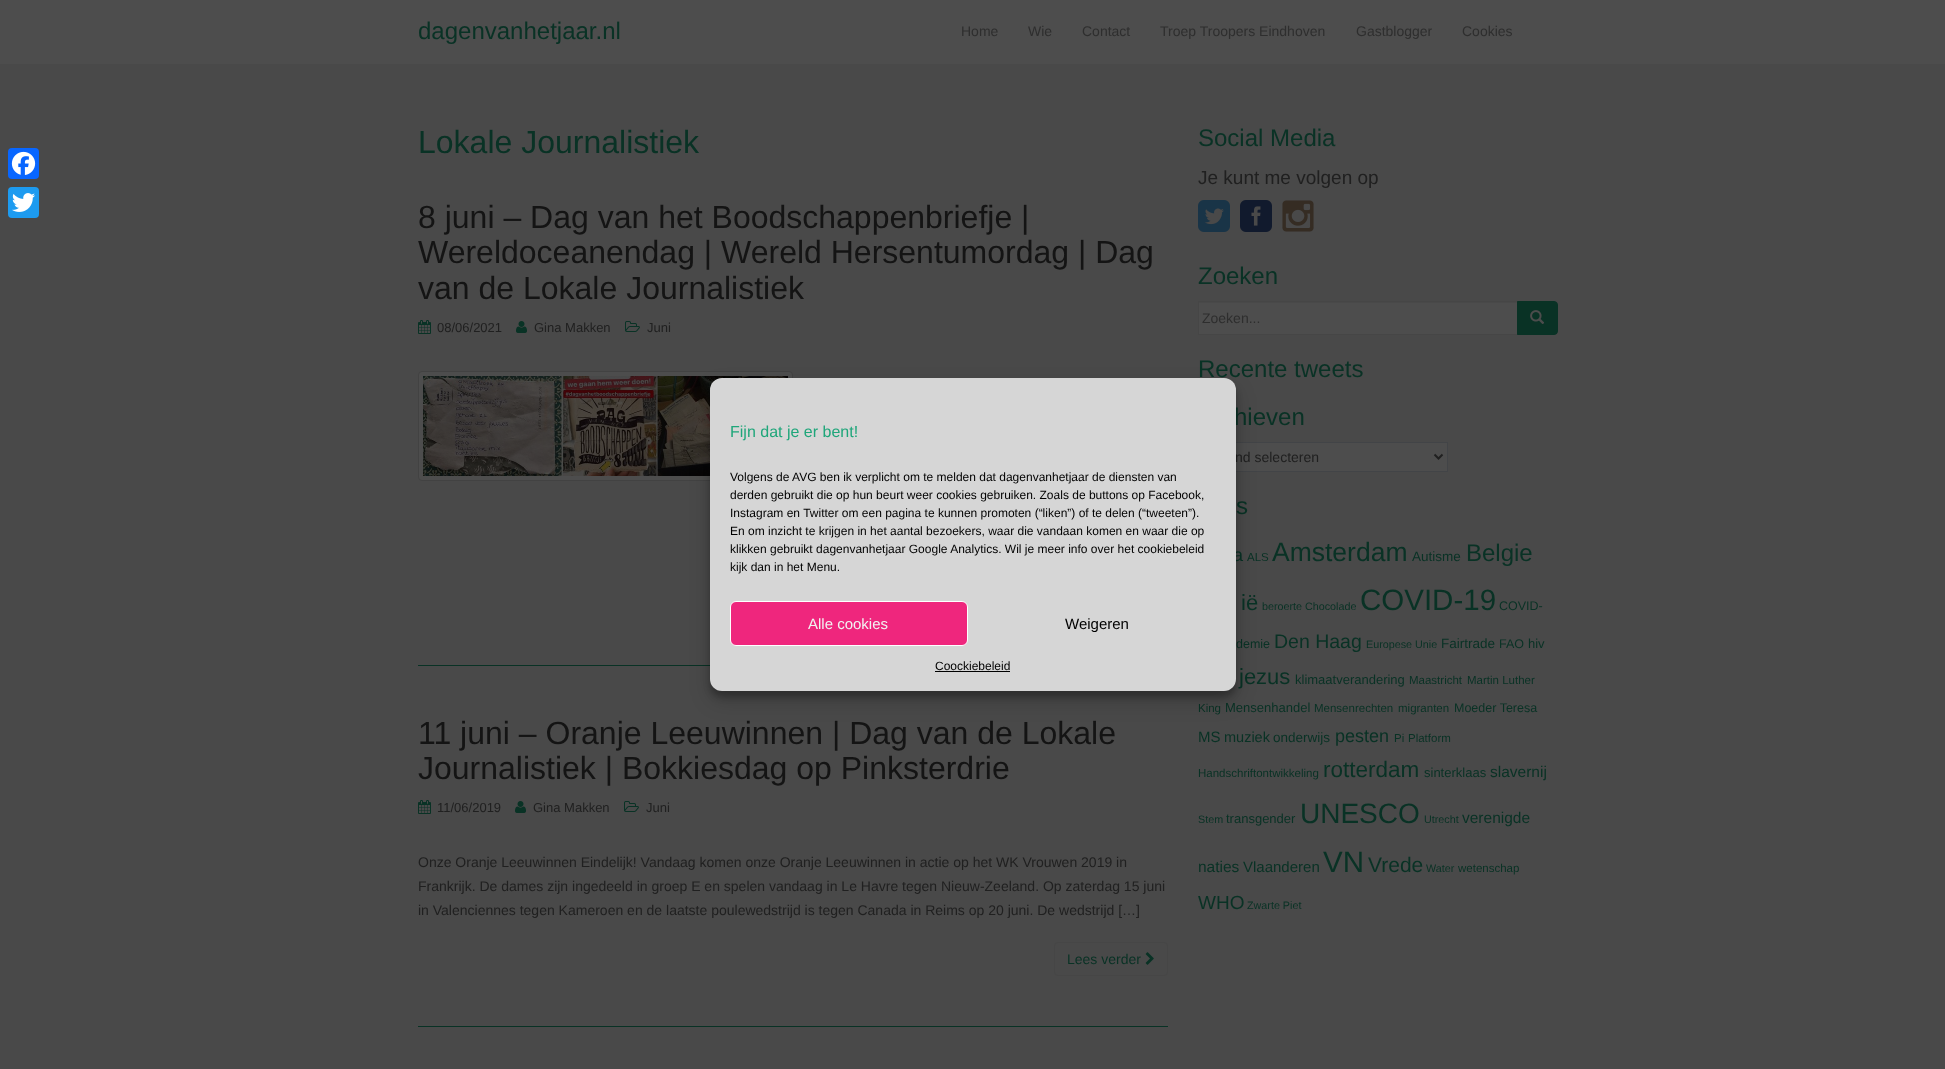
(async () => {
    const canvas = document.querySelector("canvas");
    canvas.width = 1945;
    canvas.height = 1069;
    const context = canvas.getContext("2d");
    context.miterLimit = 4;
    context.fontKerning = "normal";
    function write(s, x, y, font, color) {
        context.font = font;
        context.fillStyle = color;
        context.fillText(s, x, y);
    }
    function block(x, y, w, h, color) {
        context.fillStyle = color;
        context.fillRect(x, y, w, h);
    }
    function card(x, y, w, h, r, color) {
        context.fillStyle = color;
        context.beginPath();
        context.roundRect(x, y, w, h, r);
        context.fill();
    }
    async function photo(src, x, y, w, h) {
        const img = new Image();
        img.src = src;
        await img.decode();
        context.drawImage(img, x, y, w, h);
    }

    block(0, 0, 1945, 1069, "rgb(73, 73, 73)");
    card(8, 148, 31, 31, 4, "rgb(8, 102, 255)");
    await photo("media/1.png", 11, 151, 25, 24);
    card(8, 187, 31, 31, 4, "rgb(29, 155, 240)");
    await photo("media/2.png", 12, 193, 23, 19);
    block(0, 0, 1945, 64, "rgb(77, 77, 77)");
    write("dagenvanhetjaar.nl", 418, 39, "24px Liberation Sans", "rgb(9, 50, 37)");
    write("Home", 961, 36, "14px Liberation Sans", "rgb(46, 46, 46)");
    write("Wie", 1028, 36, "14px Liberation Sans", "rgb(46, 46, 46)");
    write("Contact", 1082, 36, "14px Liberation Sans", "rgb(46, 46, 46)");
    write("Troep Troopers Eindhoven", 1160, 36, "14px Liberation Sans", "rgb(46, 46, 46)");
    write("Gastblogger", 1356, 36, "14px Liberation Sans", "rgb(46, 46, 46)");
    write("Cookies", 1462, 36, "14px Liberation Sans", "rgb(46, 46, 46)");
    write("Lokale Journalistiek", 418, 153, "32px Liberation Sans", "rgb(9, 50, 37)");
    write("8 juni – Dag van het Boodschappenbriefje |", 418, 228, "32px Liberation Sans", "rgb(20, 20, 20)");
    write("Wereldoceanendag | Wereld Hersentumordag | Dag", 418, 263, "32px Liberation Sans", "rgb(20, 20, 20)");
    write("van de Lokale Journalistiek", 418, 299, "32px Liberation Sans", "rgb(20, 20, 20)");
    await photo("media/3.png", 418, 320, 13, 14);
    write("08/06/2021", 437, 332, "13px Liberation Sans", "rgb(32, 32, 32)");
    await photo("media/4.png", 516, 321, 11, 12);
    write("Gina Makken", 534, 332, "13px Liberation Sans", "rgb(32, 32, 32)");
    await photo("media/5.png", 625, 321, 15, 11);
    write("Juni", 647, 332, "13px Liberation Sans", "rgb(32, 32, 32)");
    context.fillStyle = "rgb(77, 77, 77)";
    context.beginPath();
    context.roundRect(418.5, 371.5, 374, 109, 3.5);
    context.fill();
    context.strokeStyle = "rgb(66, 66, 66)";
    context.stroke();
    await photo("media/6.png", 423, 376, 365, 100);
    block(418, 665, 292, 1, "rgb(9, 50, 37)");
    write("11 juni – Oranje Leeuwinnen | Dag van de Lokale", 418, 744, "32px Liberation Sans", "rgb(20, 20, 20)");
    write("Journalistiek | Bokkiesdag op Pinksterdrie", 418, 779, "32px Liberation Sans", "rgb(20, 20, 20)");
    await photo("media/3.png", 418, 800, 13, 14);
    write("11/06/2019", 437, 812, "13px Liberation Sans", "rgb(32, 32, 32)");
    await photo("media/4.png", 515, 801, 11, 12);
    write("Gina Makken", 533, 812, "13px Liberation Sans", "rgb(32, 32, 32)");
    await photo("media/5.png", 624, 801, 15, 11);
    write("Juni", 646, 812, "13px Liberation Sans", "rgb(32, 32, 32)");
    write("Onze Oranje Leeuwinnen Eindelijk! Vandaag komen onze Oranje Leeuwinnen in actie op het WK Vrouwen 2019 in", 418, 867, "14px Liberation Sans", "rgb(32, 32, 32)");
    write("Frankrijk. De dames zijn ingedeeld in groep E en spelen vandaag in Le Havre tegen Nieuw-Zeeland. Op zaterdag 15 juni", 418, 891, "14px Liberation Sans", "rgb(32, 32, 32)");
    write("in Valenciennes tegen Kameroen en de laatste poulewedstrijd is tegen Canada in Reims op 20 juni. De wedstrijd […]", 418, 915, "14px Liberation Sans", "rgb(32, 32, 32)");
    context.beginPath();
    context.roundRect(1054.5, 942.5, 113, 33, 3.5);
    context.strokeStyle = "rgb(70, 70, 70)";
    context.stroke();
    write("Lees verder", 1067, 964, "14px Liberation Sans", "rgb(9, 50, 37)");
    await photo("media/7.png", 1145, 952, 9, 13);
    block(418, 1026, 750, 1, "rgb(9, 50, 37)");
    write("Social Media", 1198, 146, "24px Liberation Sans", "rgb(9, 50, 37)");
    write("Je kunt me volgen op", 1198, 184, "19px Liberation Sans", "rgb(32, 32, 32)");
    await photo("media/8.png", 1198, 200, 32, 32);
    await photo("media/9.png", 1240, 200, 32, 32);
    await photo("media/10.png", 1282, 200, 32, 32);
    write("Zoeken", 1198, 284, "24px Liberation Sans", "rgb(9, 50, 37)");
    block(1199, 303, 318, 31, "rgb(77, 77, 77)");
    context.strokeRect(1198.5, 301.5, 319, 33);
    write("Zoeken...", 1202, 323, "14px Liberation Sans", "rgb(46, 46, 46)");
    context.fillStyle = "rgb(9, 50, 37)";
    context.beginPath();
    context.roundRect(1517.5, 301.5, 40, 33, [0, 3.5, 3.5, 0]);
    context.fill();
    context.strokeStyle = "rgb(9, 50, 37)";
    context.stroke();
    await photo("media/11.png", 1530, 310, 15, 14);
    write("Recente tweets", 1198, 377, "24px Liberation Sans", "rgb(9, 50, 37)");
    write("hieven", 1234, 425, "24px Liberation Sans", "rgb(9, 50, 37)");
    block(1236, 443, 211, 28, "rgb(77, 77, 77)");
    context.strokeStyle = "rgb(66, 68, 71)";
    context.strokeRect(1198.5, 442.5, 249, 29);
    context.beginPath();
    context.moveTo(1434.5, 454.5);
    context.lineTo(1438.5, 458.5);
    context.lineTo(1442.5, 454.5);
    context.strokeStyle = "rgb(32, 32, 32)";
    context.lineWidth = 2;
    context.stroke();
    write("nd selecteren", 1235, 462, "14px Liberation Sans", "rgb(32, 32, 32)");
    write("s", 1236, 514, "24px Liberation Sans", "rgb(9, 50, 37)");
    write("a", 1233, 561, "18px Liberation Sans", "rgb(9, 50, 37)");
    write("ALS", 1247, 561, "11.5px Liberation Sans", "rgb(9, 50, 37)");
    write("Amsterdam", 1272, 561, "26.5px Liberation Sans", "rgb(9, 50, 37)");
    write("Autisme", 1412, 561, "13.5px Liberation Sans", "rgb(9, 50, 37)");
    write("Belgie", 1466, 561, "24px Liberation Sans", "rgb(9, 50, 37)");
    write("ië", 1241, 610, "22px Liberation Sans", "rgb(9, 50, 37)");
    write("beroerte", 1262, 610, "10.75px Liberation Sans", "rgb(9, 50, 37)");
    write("Chocolade", 1305, 610, "10.75px Liberation Sans", "rgb(9, 50, 37)");
    write("COVID-19", 1360, 610, "29.5px Liberation Sans", "rgb(9, 50, 37)");
    write("COVID-", 1499, 610, "12.5px Liberation Sans", "rgb(9, 50, 37)");
    write("demie", 1236, 648, "12.5px Liberation Sans", "rgb(9, 50, 37)");
    write("Den Haag", 1274, 648, "19.5px Liberation Sans", "rgb(9, 50, 37)");
    write("Europese Unie", 1366, 648, "10.75px Liberation Sans", "rgb(9, 50, 37)");
    write("Fairtrade", 1441, 648, "13.5px Liberation Sans", "rgb(9, 50, 37)");
    write("FAO", 1499, 648, "12.5px Liberation Sans", "rgb(9, 50, 37)");
    write("hiv", 1528, 648, "13px Liberation Sans", "rgb(9, 50, 37)");
    write("jezus", 1239, 684, "22px Liberation Sans", "rgb(9, 50, 37)");
    write("klimaatverandering", 1295, 684, "13px Liberation Sans", "rgb(9, 50, 37)");
    write("Maastricht", 1409, 684, "11.5px Liberation Sans", "rgb(9, 50, 37)");
    write("Martin Luther", 1467, 684, "11.5px Liberation Sans", "rgb(9, 50, 37)");
    write("King", 1198, 712, "11.5px Liberation Sans", "rgb(9, 50, 37)");
    write("Mensenhandel", 1225, 712, "13px Liberation Sans", "rgb(9, 50, 37)");
    write("Mensenrechten", 1314, 712, "11.5px Liberation Sans", "rgb(9, 50, 37)");
    write("migranten", 1398, 712, "11.5px Liberation Sans", "rgb(9, 50, 37)");
    write("Moeder Teresa", 1454, 712, "12.5px Liberation Sans", "rgb(9, 50, 37)");
    write("MS", 1198, 742, "15px Liberation Sans", "rgb(9, 50, 37)");
    write("muziek", 1224, 742, "14.5px Liberation Sans", "rgb(9, 50, 37)");
    write("onderwijs", 1273, 742, "13.5px Liberation Sans", "rgb(9, 50, 37)");
    write("pesten", 1335, 742, "18px Liberation Sans", "rgb(9, 50, 37)");
    write("Pi", 1394, 742, "11.5px Liberation Sans", "rgb(9, 50, 37)");
    write("Platform", 1408, 742, "11.5px Liberation Sans", "rgb(9, 50, 37)");
    write("Handschriftontwikkeling", 1198, 777, "11.5px Liberation Sans", "rgb(9, 50, 37)");
    write("rotterdam", 1323, 777, "22.5px Liberation Sans", "rgb(9, 50, 37)");
    write("sinterklaas", 1424, 777, "13px Liberation Sans", "rgb(9, 50, 37)");
    write("slavernij", 1490, 777, "15.5px Liberation Sans", "rgb(9, 50, 37)");
    write("Stem", 1198, 823, "10.75px Liberation Sans", "rgb(9, 50, 37)");
    write("transgender", 1226, 823, "13px Liberation Sans", "rgb(9, 50, 37)");
    write("UNESCO", 1300, 823, "28px Liberation Sans", "rgb(9, 50, 37)");
    write("Utrecht", 1424, 823, "10.75px Liberation Sans", "rgb(9, 50, 37)");
    write("verenigde", 1462, 823, "15.5px Liberation Sans", "rgb(9, 50, 37)");
    write("naties", 1198, 872, "15.5px Liberation Sans", "rgb(9, 50, 37)");
    write("Vlaanderen", 1243, 872, "15px Liberation Sans", "rgb(9, 50, 37)");
    write("VN", 1323, 872, "29.5px Liberation Sans", "rgb(9, 50, 37)");
    write("Vrede", 1368, 872, "21px Liberation Sans", "rgb(9, 50, 37)");
    write("Water", 1426, 872, "10.75px Liberation Sans", "rgb(9, 50, 37)");
    write("wetenschap", 1458, 872, "11.5px Liberation Sans", "rgb(9, 50, 37)");
    write("WHO", 1198, 909, "19px Liberation Sans", "rgb(9, 50, 37)");
    write("Zwarte Piet", 1247, 909, "10.75px Liberation Sans", "rgb(9, 50, 37)");
    context.fillStyle = "rgba(0, 0, 0, 0.23)";
    context.filter = "blur(3px)";
    context.beginPath();
    context.roundRect(710, 384, 526, 313, 12);
    context.fill();
    context.filter = "none";
    context.fillStyle = "rgba(0, 0, 0, 0.19)";
    context.filter = "blur(10px)";
    context.beginPath();
    context.roundRect(710, 388, 526, 313, 12);
    context.fill();
    context.filter = "none";
    card(710, 378, 526, 313, 12, "rgb(214, 214, 214)");
    write("Fijn dat je er bent!", 730, 437, "16px Liberation Sans", "rgb(31, 166, 122)");
    write("Volgens de AVG ben ik verplicht om te melden dat dagenvanhetjaar de diensten van", 730, 481, "12px Liberation Sans", "rgb(0, 0, 0)");
    write("derden gebruikt die op hun beurt weer cookies gebruiken. Zoals de buttons op Facebook,", 730, 499, "12px Liberation Sans", "rgb(0, 0, 0)");
    write("Instagram en Twitter om een pagina te kunnen promoten (“liken”) of te delen (“tweeten”).", 730, 517, "12px Liberation Sans", "rgb(0, 0, 0)");
    write("En om inzicht te krijgen in het aantal bezoekers, waar die vandaan komen en waar die op", 730, 535, "12px Liberation Sans", "rgb(0, 0, 0)");
    write("klikken gebruikt dagenvanhetjaar Google Analytics. Wil je meer info over het cookiebeleid", 730, 553, "12px Liberation Sans", "rgb(0, 0, 0)");
    write("kijk dan in het Menu.", 730, 571, "12px Liberation Sans", "rgb(0, 0, 0)");
    context.fillStyle = "rgb(239, 38, 125)";
    context.beginPath();
    context.roundRect(730.5, 601.5, 237, 44, 5.5);
    context.fill();
    context.strokeStyle = "rgb(255, 255, 255)";
    context.lineWidth = 1;
    context.stroke();
    write("Alle cookies", 808, 629, "15px Liberation Sans", "rgb(242, 242, 242)");
    write("Weigeren", 1065, 629, "15px Liberation Sans", "rgb(0, 0, 0)");
    write("Coockiebeleid", 935, 670, "12px Liberation Sans", "rgb(0, 0, 0)");
    block(935, 671, 75, 1, "rgb(0, 0, 0)");
})();
